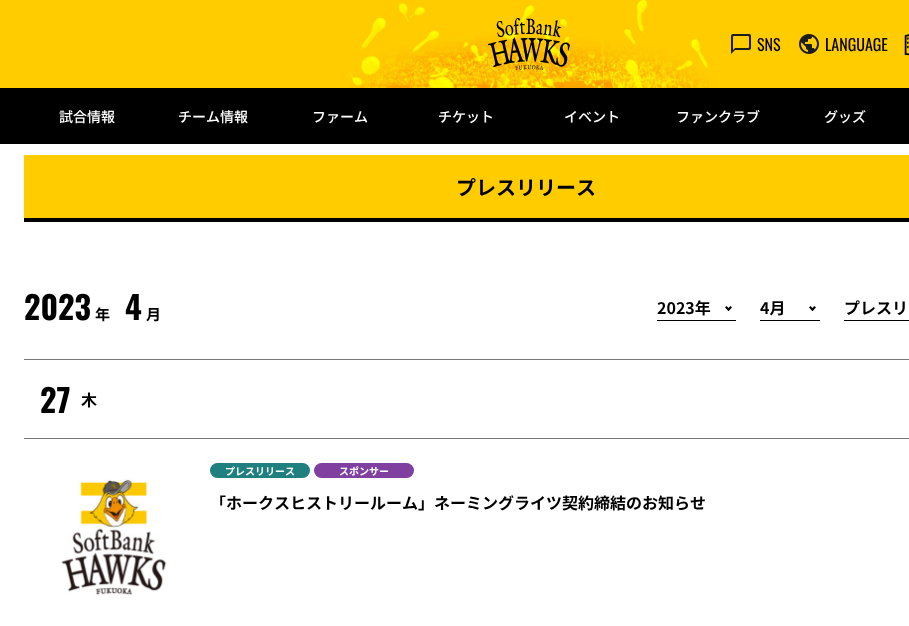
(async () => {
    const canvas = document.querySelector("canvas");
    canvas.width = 909;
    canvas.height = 626;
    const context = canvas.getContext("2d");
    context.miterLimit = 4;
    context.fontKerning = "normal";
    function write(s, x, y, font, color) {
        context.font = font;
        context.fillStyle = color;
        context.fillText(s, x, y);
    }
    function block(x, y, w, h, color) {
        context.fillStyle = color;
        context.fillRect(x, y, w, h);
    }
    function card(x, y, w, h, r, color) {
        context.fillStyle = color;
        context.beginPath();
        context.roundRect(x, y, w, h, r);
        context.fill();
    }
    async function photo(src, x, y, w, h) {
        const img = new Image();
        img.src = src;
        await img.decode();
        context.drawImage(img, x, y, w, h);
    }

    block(0, 0, 909, 626, "rgb(255, 255, 255)");
    block(0, 0, 909, 88, "rgb(255, 204, 0)");
    await photo("media/1.png", 349, 0, 360, 88);
    await photo("media/2.png", 488, 18, 82, 52);
    await photo("media/3.png", 731, 34, 20, 20);
    write("SNS", 757, 51, "16px Oswald", "rgb(0, 0, 0)");
    await photo("media/4.png", 799, 34, 20, 20);
    write("LANGUAGE", 825, 51, "16px Oswald", "rgb(0, 0, 0)");
    await photo("media/5.png", 904, 34, 5, 22);
    block(0, 88, 909, 56, "rgb(0, 0, 0)");
    write("試合情報", 59, 122, "500 14px Noto Sans JP", "rgb(255, 255, 255)");
    write("チーム情報", 178, 122, "500 14px Noto Sans JP", "rgb(255, 255, 255)");
    write("ファーム", 312, 122, "500 14px Noto Sans JP", "rgb(255, 255, 255)");
    write("チケット", 438, 122, "500 14px Noto Sans JP", "rgb(255, 255, 255)");
    write("イベント", 564, 122, "500 14px Noto Sans JP", "rgb(255, 255, 255)");
    write("ファンクラブ", 676, 122, "500 14px Noto Sans JP", "rgb(255, 255, 255)");
    write("グッズ", 824, 122, "500 14px Noto Sans JP", "rgb(255, 255, 255)");
    block(24, 155, 885, 63, "rgb(255, 204, 0)");
    block(24, 218, 885, 4, "rgb(0, 0, 0)");
    write("プレスリリース", 456, 195, "bold 20px Noto Sans JP", "rgb(0, 0, 0)");
    write("2023", 24, 320, "bold 32px Oswald", "rgb(0, 0, 0)");
    write("年", 95, 320, "bold 15px Noto Sans JP", "rgb(0, 0, 0)");
    write("4", 125, 320, "bold 32px Oswald", "rgb(0, 0, 0)");
    write("月", 146, 320, "bold 15px Noto Sans JP", "rgb(0, 0, 0)");
    block(657, 320, 79, 1, "rgb(0, 0, 0)");
    write("2023年", 657, 314, "bold 16px Noto Sans JP", "rgb(0, 0, 0)");
    context.beginPath();
    context.moveTo(730.5, 306);
    context.lineTo(732, 307.5);
    context.lineTo(728.5, 311);
    context.lineTo(727, 309.5);
    context.closePath();
    context.fill();
    context.beginPath();
    context.moveTo(726.5, 306);
    context.lineTo(730, 309.5);
    context.lineTo(728.5, 311);
    context.lineTo(725, 307.5);
    context.closePath();
    context.fill();
    block(760, 320, 60, 1, "rgb(0, 0, 0)");
    write("4月", 760, 314, "bold 16px Noto Sans JP", "rgb(0, 0, 0)");
    context.beginPath();
    context.moveTo(814.5, 306);
    context.lineTo(816, 307.5);
    context.lineTo(812.5, 311);
    context.lineTo(811, 309.5);
    context.closePath();
    context.fill();
    context.beginPath();
    context.moveTo(810.5, 306);
    context.lineTo(814, 309.5);
    context.lineTo(812.5, 311);
    context.lineTo(809, 307.5);
    context.closePath();
    context.fill();
    block(844, 320, 65, 1, "rgb(0, 0, 0)");
    write("プレスリ", 844, 314, "bold 16px Noto Sans JP", "rgb(0, 0, 0)");
    block(24, 359, 885, 1, "rgb(119, 119, 119)");
    write("27", 40, 413, "bold 32px Oswald", "rgb(0, 0, 0)");
    write("木", 81, 406, "bold 16px Noto Sans JP", "rgb(0, 0, 0)");
    block(24, 438, 885, 1, "rgb(119, 119, 119)");
    await photo("media/6.png", 61, 479, 106, 117);
    card(210, 463, 100, 15, 7.5, "rgb(32, 128, 128)");
    write("プレスリリース", 225, 475, "bold 10px Noto Sans JP", "rgb(255, 255, 255)");
    card(314, 463, 100, 15, 7.5, "rgb(128, 64, 160)");
    write("スポンサー", 339, 475, "bold 10px Noto Sans JP", "rgb(255, 255, 255)");
    write("「ホークスヒストリールーム」ネーミングライツ契約締結のお知らせ", 210, 509, "bold 16px Noto Sans JP", "rgb(0, 0, 0)");
})();
